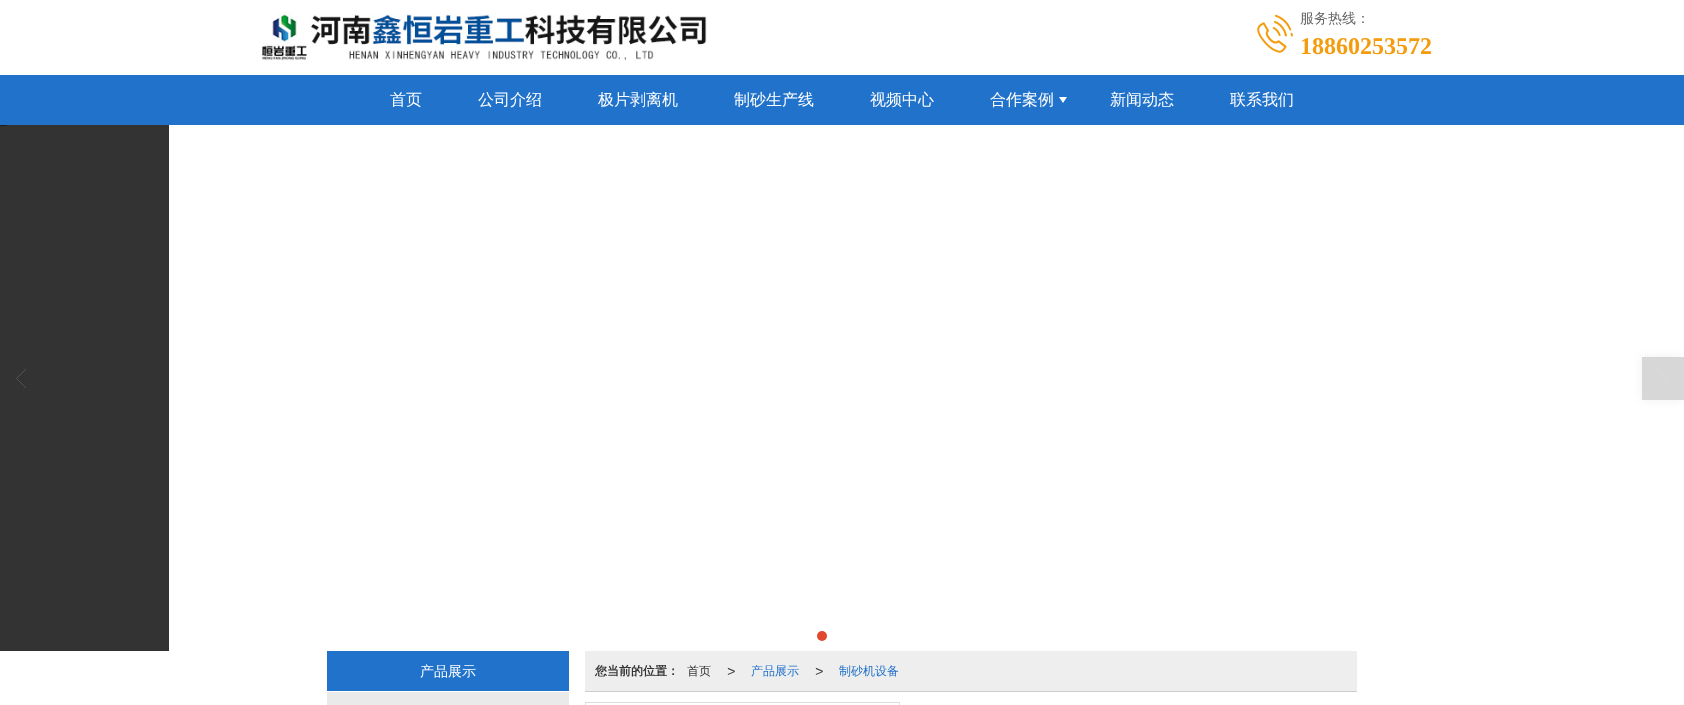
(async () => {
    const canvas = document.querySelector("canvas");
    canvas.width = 1684;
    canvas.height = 705;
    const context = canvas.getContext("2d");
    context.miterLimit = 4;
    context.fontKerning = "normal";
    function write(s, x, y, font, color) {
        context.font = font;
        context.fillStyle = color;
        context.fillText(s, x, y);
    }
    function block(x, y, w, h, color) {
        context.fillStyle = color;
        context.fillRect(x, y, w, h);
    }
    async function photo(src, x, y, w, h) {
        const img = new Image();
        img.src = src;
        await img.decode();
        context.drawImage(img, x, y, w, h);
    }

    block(0, 0, 1684, 705, "rgb(255, 255, 255)");
    await photo("media/1.png", 262, 11, 445, 50);
    await photo("media/2.png", 1257, 14, 36, 39);
    write("服务热线：", 1300, 23, "500 14px WenQuanYi Zen Hei", "rgb(102, 102, 102)");
    write("18860253572", 1300, 54, "bold 24px Liberation Serif", "rgb(244, 156, 13)");
    block(0, 75, 1684, 50, "rgb(32, 114, 203)");
    write("首页", 390, 105, "500 16px WenQuanYi Zen Hei", "rgb(255, 255, 255)");
    write("公司介绍", 478, 105, "500 16px WenQuanYi Zen Hei", "rgb(255, 255, 255)");
    write("极片剥离机", 598, 105, "500 16px WenQuanYi Zen Hei", "rgb(255, 255, 255)");
    write("制砂生产线", 734, 105, "500 16px WenQuanYi Zen Hei", "rgb(255, 255, 255)");
    write("视频中心", 870, 105, "500 16px WenQuanYi Zen Hei", "rgb(255, 255, 255)");
    write("合作案例", 990, 105, "500 16px WenQuanYi Zen Hei", "rgb(255, 255, 255)");
    context.beginPath();
    context.moveTo(1059, 97);
    context.lineTo(1067, 97);
    context.lineTo(1063, 103);
    context.closePath();
    context.fill();
    write("新闻动态", 1110, 105, "500 16px WenQuanYi Zen Hei", "rgb(255, 255, 255)");
    write("联系我们", 1230, 105, "500 16px WenQuanYi Zen Hei", "rgb(255, 255, 255)");
    block(0, 125, 169, 526, "rgb(51, 51, 51)");
    block(0, 125, 7, 1, "rgb(31, 31, 31)");
    context.fillStyle = "rgba(204, 204, 204, 0.3)";
    context.filter = "blur(5px)";
    context.beginPath();
    context.rect(1642, 357, 42, 43);
    context.fill();
    context.filter = "none";
    block(1642, 357, 42, 43, "rgb(215, 215, 215)");
    await photo("media/3.png", 1658, 369, 10, 19);
    await photo("media/4.png", 16, 369, 10, 19);
    context.fillStyle = "rgb(225, 71, 47)";
    context.beginPath();
    context.arc(822, 636, 5, 0, Math.PI * 2);
    context.fill();
    block(327, 651, 242, 40, "rgb(32, 114, 203)");
    write("产品展示", 420, 676, "500 14px WenQuanYi Zen Hei", "rgb(255, 255, 255)");
    block(327, 692, 242, 13, "rgb(234, 234, 234)");
    block(585, 651, 772, 40, "rgb(238, 238, 238)");
    block(585, 691, 772, 1, "rgb(204, 204, 204)");
    write("您当前的位置：", 595, 675, "bold 12px WenQuanYi Zen Hei", "rgb(51, 51, 51)");
    write("首页", 687, 675, "500 12px WenQuanYi Zen Hei", "rgb(51, 51, 51)");
    write(">", 727, 676, "italic 14px Liberation Sans", "rgb(51, 51, 51)");
    write("产品展示", 751, 675, "500 12px WenQuanYi Zen Hei", "rgb(32, 114, 203)");
    write(">", 815, 676, "italic 14px Liberation Sans", "rgb(51, 51, 51)");
    write("制砂机设备", 839, 675, "500 12px WenQuanYi Zen Hei", "rgb(32, 114, 203)");
    context.strokeStyle = "rgb(221, 221, 221)";
    context.strokeRect(585.5, 702.5, 314, 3);
})();
